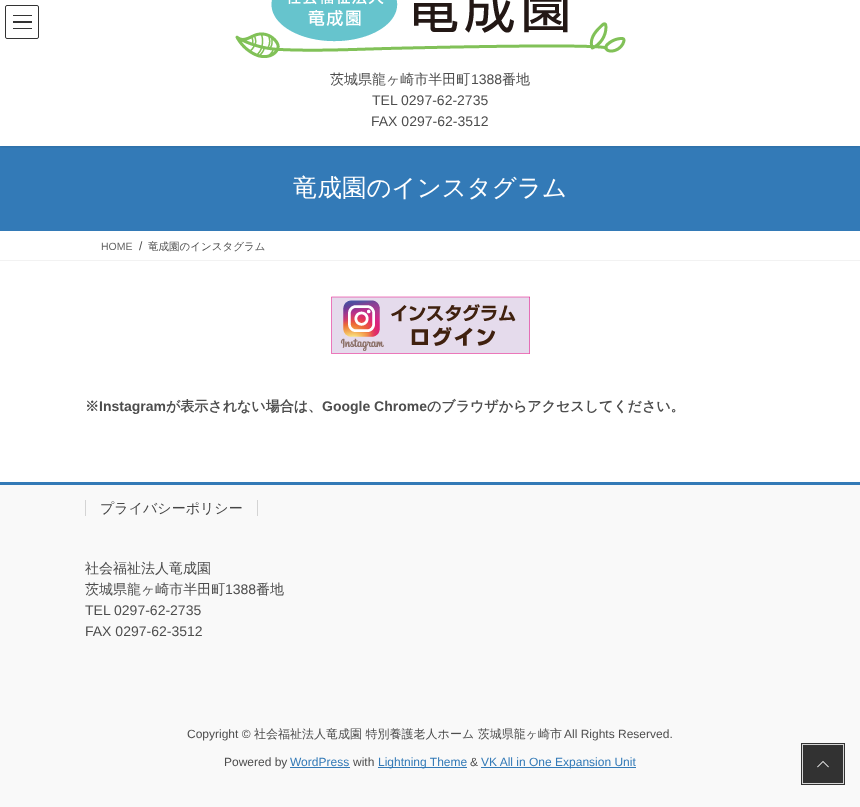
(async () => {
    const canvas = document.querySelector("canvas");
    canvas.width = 860;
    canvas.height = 807;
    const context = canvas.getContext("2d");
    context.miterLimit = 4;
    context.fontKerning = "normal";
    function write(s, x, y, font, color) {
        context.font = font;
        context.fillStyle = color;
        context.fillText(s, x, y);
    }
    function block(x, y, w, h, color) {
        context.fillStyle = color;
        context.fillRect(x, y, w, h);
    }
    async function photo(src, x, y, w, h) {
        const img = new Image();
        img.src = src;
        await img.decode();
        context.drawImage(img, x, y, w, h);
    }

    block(0, 0, 860, 807, "rgb(255, 255, 255)");
    block(0, 146, 860, 85, "rgb(51, 122, 183)");
    context.save();
    context.beginPath();
    context.rect(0, 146, 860, 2);
    context.clip();
    context.fillStyle = "rgba(0, 0, 0, 0.1)";
    context.filter = "blur(1.5px)";
    context.beginPath();
    context.rect(0, -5, 860, 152);
    context.fill();
    context.filter = "none";
    context.restore();
    block(13, 15, 19, 1, "rgb(51, 51, 51)");
    block(13, 21, 19, 2, "rgb(51, 51, 51)");
    block(13, 28, 19, 1, "rgb(51, 51, 51)");
    context.beginPath();
    context.roundRect(5.5, 5.5, 33, 33, 1.5);
    context.strokeStyle = "rgb(51, 51, 51)";
    context.stroke();
    await photo("media/1.png", 235, 0, 391, 58);
    write("茨城県龍ヶ崎市半田町", 330, 84, "500 14px WenQuanYi Zen Hei", "rgb(77, 77, 77)");
    write("1388", 471, 84, "14px Liberation Sans", "rgb(77, 77, 77)");
    write("番地", 502, 84, "500 14px WenQuanYi Zen Hei", "rgb(77, 77, 77)");
    write("TEL 0297-62-2735", 372, 105, "14px Liberation Sans", "rgb(77, 77, 77)");
    write("FAX 0297-62-3512", 371, 126, "14px Liberation Sans", "rgb(77, 77, 77)");
    write("竜成園のインスタグラム", 293, 196, "500 24.5px WenQuanYi Zen Hei", "rgb(255, 255, 255)");
    block(0, 260, 860, 1, "rgb(242, 242, 242)");
    write("HOME", 101, 250, "10.5px Liberation Sans", "rgb(102, 102, 102)");
    write("/", 139, 250, "12px Liberation Sans", "rgb(77, 77, 77)");
    write("竜成園のインスタグラム", 148, 250, "500 10.5px WenQuanYi Zen Hei", "rgb(77, 77, 77)");
    await photo("media/2.png", 331, 296, 199, 58);
    write("※", 85, 411, "bold 14px WenQuanYi Zen Hei", "rgb(77, 77, 77)");
    write("Instagram", 99, 411, "bold 14px Liberation Sans", "rgb(77, 77, 77)");
    write("が表示されない場合は、", 166, 411, "bold 14px WenQuanYi Zen Hei", "rgb(77, 77, 77)");
    write("Google Chrome", 322, 411, "bold 14px Liberation Sans", "rgb(77, 77, 77)");
    write("のブラウザからアクセスしてください。", 427, 411, "bold 14px WenQuanYi Zen Hei", "rgb(77, 77, 77)");
    block(0, 485, 860, 322, "rgb(249, 249, 249)");
    block(0, 482, 860, 3, "rgb(51, 122, 183)");
    write("プライバシーポリシー", 100, 513, "500 14px WenQuanYi Zen Hei", "rgb(70, 70, 70)");
    block(257, 500, 1, 16, "rgb(212, 212, 212)");
    block(85, 500, 1, 16, "rgb(212, 212, 212)");
    write("社会福祉法人竜成園", 85, 573, "500 14px WenQuanYi Zen Hei", "rgb(77, 77, 77)");
    write("茨城県龍ヶ崎市半田町", 85, 594, "500 14px WenQuanYi Zen Hei", "rgb(77, 77, 77)");
    write("1388", 225, 594, "14px Liberation Sans", "rgb(77, 77, 77)");
    write("番地", 256, 594, "500 14px WenQuanYi Zen Hei", "rgb(77, 77, 77)");
    write("TEL 0297-62-2735", 85, 615, "14px Liberation Sans", "rgb(77, 77, 77)");
    write("FAX 0297-62-3512", 85, 636, "14px Liberation Sans", "rgb(77, 77, 77)");
    write("Copyright ©", 187, 738, "12px Liberation Sans", "rgb(77, 77, 77)");
    write("社会福祉法人竜成園 特別養護老人ホーム 茨城県龍ヶ崎市", 254, 738, "500 12px WenQuanYi Zen Hei", "rgb(77, 77, 77)");
    write("All Rights Reserved.", 564, 738, "12px Liberation Sans", "rgb(77, 77, 77)");
    write("Powered by", 224, 766, "12px Liberation Sans", "rgb(77, 77, 77)");
    write("WordPress", 290, 766, "12px Liberation Sans", "rgb(51, 122, 183)");
    block(290, 767, 60, 1, "rgb(51, 122, 183)");
    write("with", 353, 766, "12px Liberation Sans", "rgb(77, 77, 77)");
    block(378, 767, 89, 1, "rgb(51, 122, 183)");
    write("Lightning Theme", 378, 766, "12px Liberation Sans", "rgb(51, 122, 183)");
    write("&", 470, 766, "12px Liberation Sans", "rgb(77, 77, 77)");
    block(481, 767, 155, 1, "rgb(51, 122, 183)");
    write("VK All in One Expansion Unit", 481, 766, "12px Liberation Sans", "rgb(51, 122, 183)");
    context.strokeStyle = "rgb(50, 50, 50)";
    context.lineWidth = 2;
    context.strokeRect(802, 744, 42, 40);
    context.strokeStyle = "rgb(214, 214, 214)";
    context.lineWidth = 1;
    context.strokeRect(802.5, 744.5, 41, 39);
    block(803, 745, 40, 38, "rgb(50, 50, 50)");
    await photo("media/3.png", 817, 761, 12, 7);
})();
